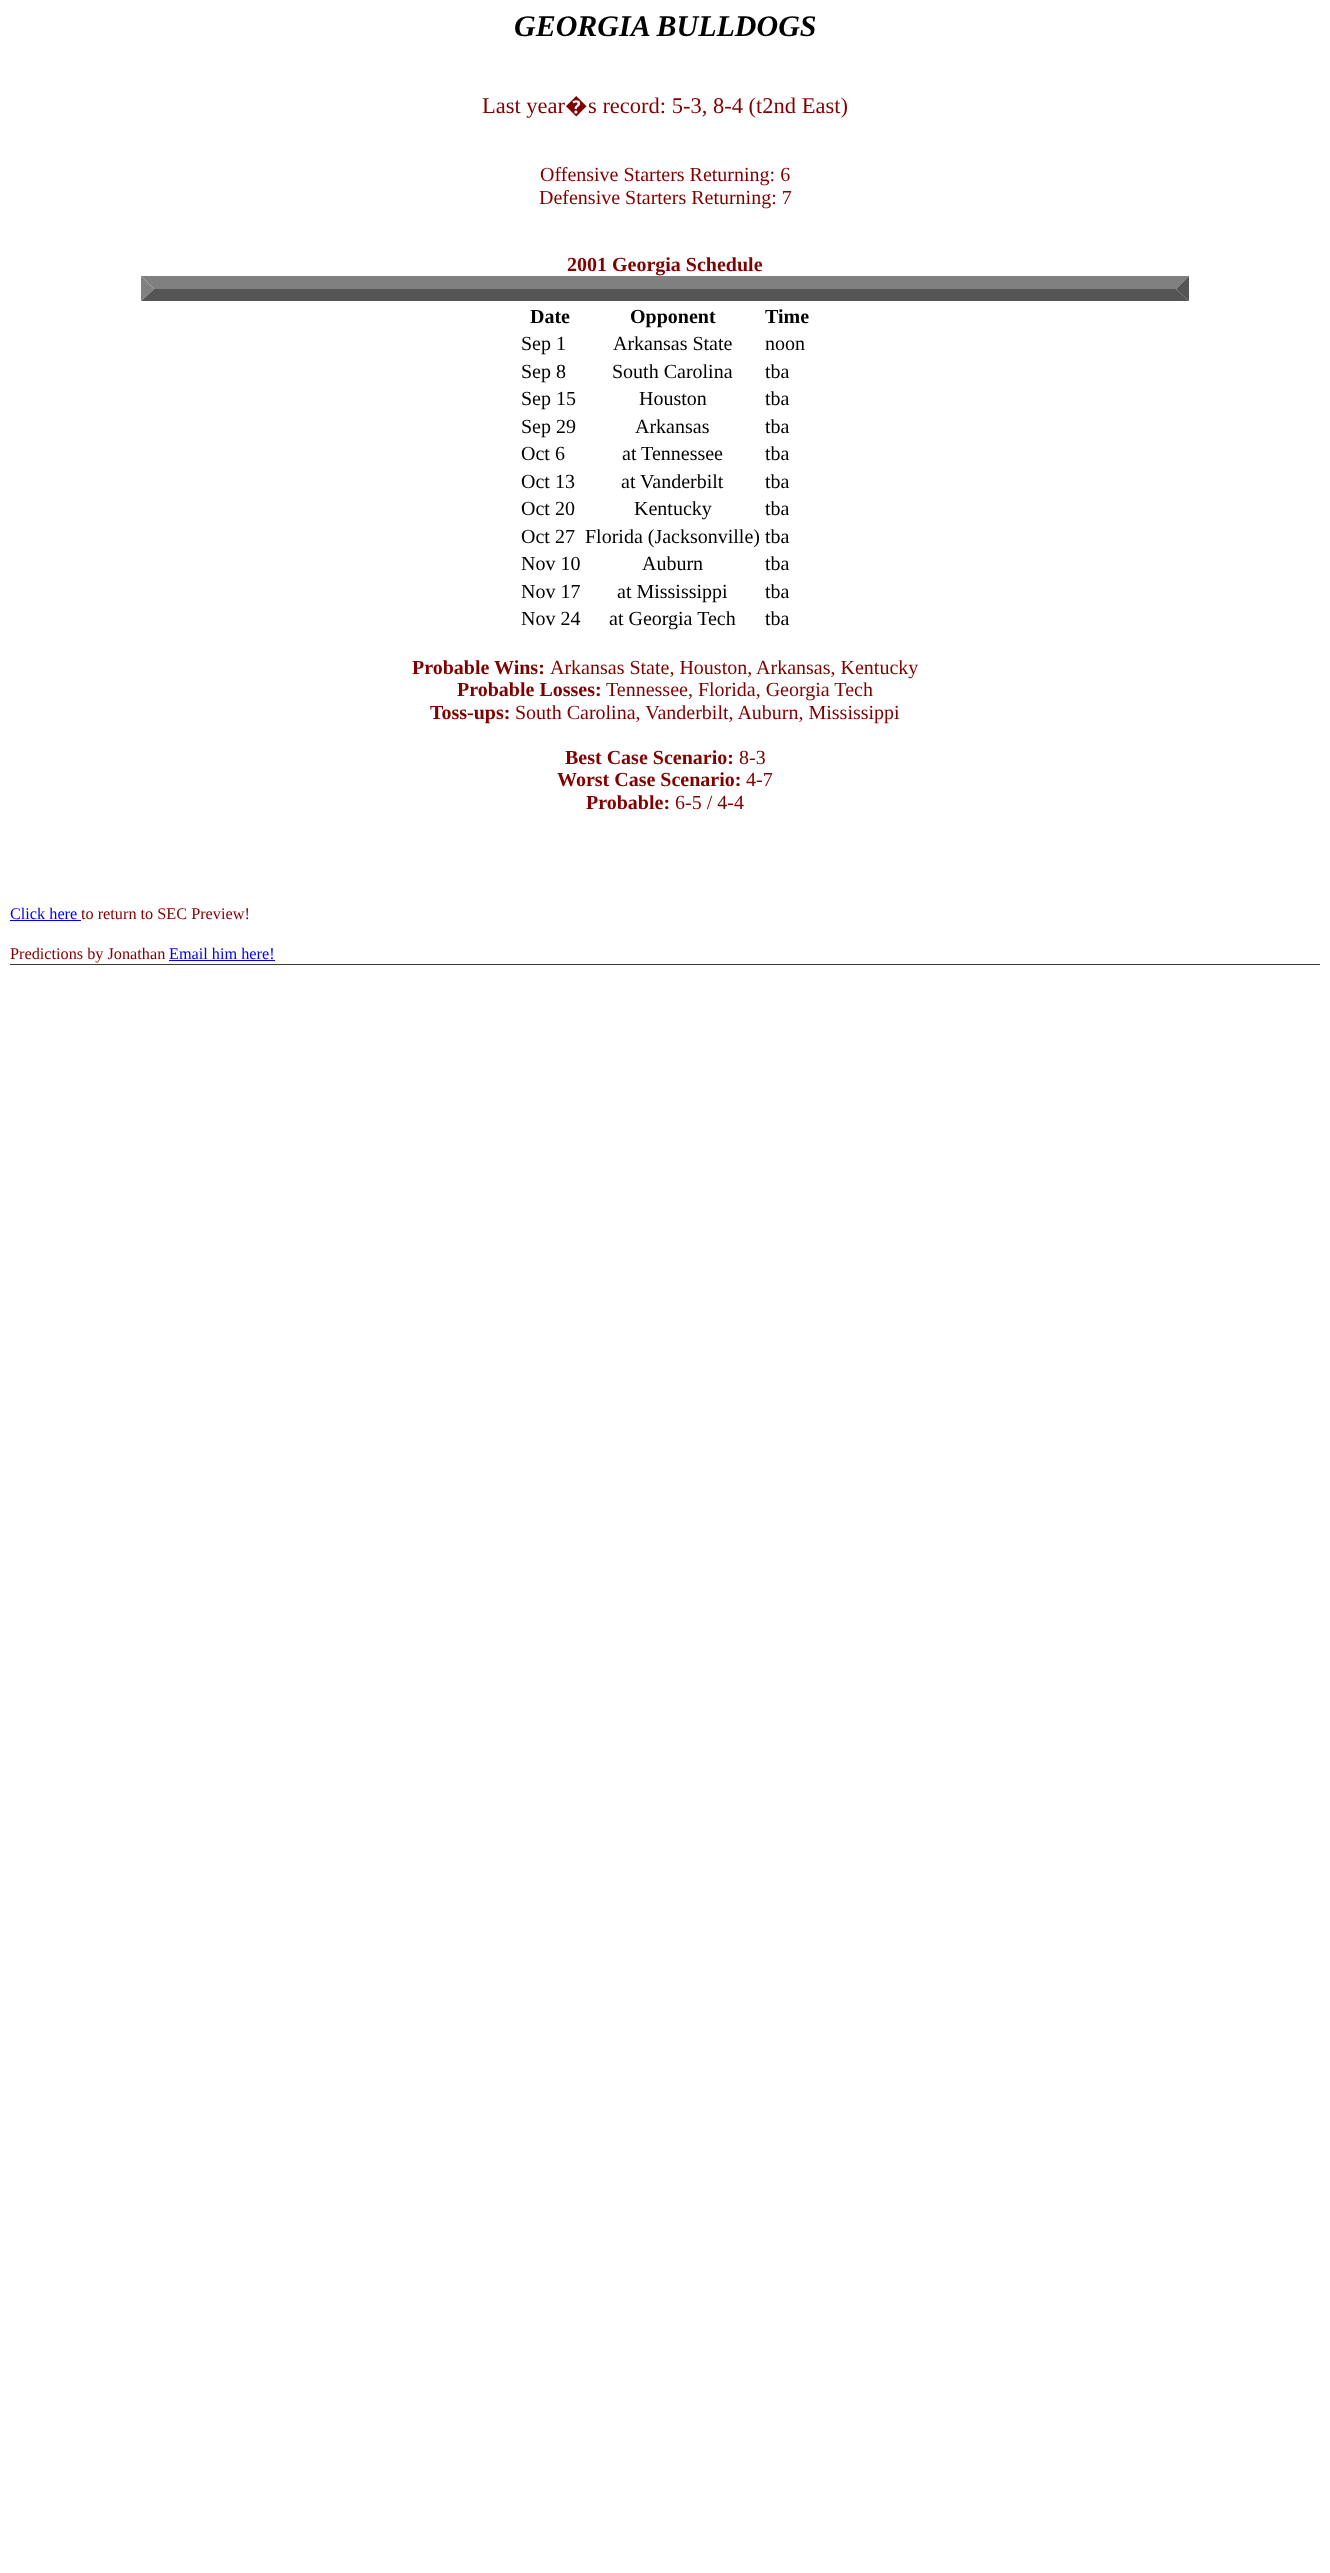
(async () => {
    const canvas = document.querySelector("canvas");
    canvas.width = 1330;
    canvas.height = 2573;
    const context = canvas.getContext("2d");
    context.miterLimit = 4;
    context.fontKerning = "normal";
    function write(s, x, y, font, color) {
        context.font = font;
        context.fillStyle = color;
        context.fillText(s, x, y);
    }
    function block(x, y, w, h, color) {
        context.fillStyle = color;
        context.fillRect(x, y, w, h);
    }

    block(0, 0, 1330, 2573, "rgb(255, 255, 255)");
    write("GEORGIA BULLDOGS", 514, 36, "italic bold 30px Liberation Serif", "rgb(0, 0, 0)");
    write("Last year", 482, 113, "22.5px Liberation Serif", "rgb(128, 0, 0)");
    write("�", 565, 113, "22.5px Noto Sans", "rgb(128, 0, 0)");
    write("s record: 5-3, 8-4 (t2nd East)", 588, 113, "22.5px Liberation Serif", "rgb(128, 0, 0)");
    write("Offensive Starters Returning: 6", 540, 181, "20px Liberation Serif", "rgb(128, 0, 0)");
    write("Defensive Starters Returning: 7", 539, 204, "20px Liberation Serif", "rgb(128, 0, 0)");
    write("2001 Georgia Schedule", 567, 271, "bold 20px Liberation Serif", "rgb(128, 0, 0)");
    context.fillStyle = "rgb(128, 128, 128)";
    context.beginPath();
    context.moveTo(141, 276);
    context.lineTo(1189, 276);
    context.lineTo(1176, 289);
    context.lineTo(154, 289);
    context.closePath();
    context.fill();
    context.fillStyle = "rgb(85, 85, 85)";
    context.beginPath();
    context.moveTo(1189, 276);
    context.lineTo(1189, 301);
    context.lineTo(1176, 289);
    context.closePath();
    context.fill();
    context.beginPath();
    context.moveTo(1189, 301);
    context.lineTo(141, 301);
    context.lineTo(154, 289);
    context.lineTo(1176, 289);
    context.closePath();
    context.fill();
    context.fillStyle = "rgb(128, 128, 128)";
    context.beginPath();
    context.moveTo(141, 301);
    context.lineTo(141, 276);
    context.lineTo(154, 289);
    context.closePath();
    context.fill();
    write("Date", 530, 323, "bold 20px Liberation Serif", "rgb(0, 0, 0)");
    write("Opponent", 630, 323, "bold 20px Liberation Serif", "rgb(0, 0, 0)");
    write("Time", 765, 323, "bold 20px Liberation Serif", "rgb(0, 0, 0)");
    write("Sep 1", 521, 350, "20px Liberation Serif", "rgb(0, 0, 0)");
    write("Arkansas State", 613, 350, "20px Liberation Serif", "rgb(0, 0, 0)");
    write("noon", 765, 350, "20px Liberation Serif", "rgb(0, 0, 0)");
    write("Sep 8", 521, 378, "20px Liberation Serif", "rgb(0, 0, 0)");
    write("South Carolina", 612, 378, "20px Liberation Serif", "rgb(0, 0, 0)");
    write("tba", 765, 378, "20px Liberation Serif", "rgb(0, 0, 0)");
    write("Sep 15", 521, 405, "20px Liberation Serif", "rgb(0, 0, 0)");
    write("Houston", 639, 405, "20px Liberation Serif", "rgb(0, 0, 0)");
    write("tba", 765, 405, "20px Liberation Serif", "rgb(0, 0, 0)");
    write("Sep 29", 521, 433, "20px Liberation Serif", "rgb(0, 0, 0)");
    write("Arkansas", 635, 433, "20px Liberation Serif", "rgb(0, 0, 0)");
    write("tba", 765, 433, "20px Liberation Serif", "rgb(0, 0, 0)");
    write("Oct 6", 521, 460, "20px Liberation Serif", "rgb(0, 0, 0)");
    write("at Tennessee", 622, 460, "20px Liberation Serif", "rgb(0, 0, 0)");
    write("tba", 765, 460, "20px Liberation Serif", "rgb(0, 0, 0)");
    write("Oct 13", 521, 488, "20px Liberation Serif", "rgb(0, 0, 0)");
    write("at Vanderbilt", 621, 488, "20px Liberation Serif", "rgb(0, 0, 0)");
    write("tba", 765, 488, "20px Liberation Serif", "rgb(0, 0, 0)");
    write("Oct 20", 521, 515, "20px Liberation Serif", "rgb(0, 0, 0)");
    write("Kentucky", 634, 515, "20px Liberation Serif", "rgb(0, 0, 0)");
    write("tba", 765, 515, "20px Liberation Serif", "rgb(0, 0, 0)");
    write("Oct 27", 521, 543, "20px Liberation Serif", "rgb(0, 0, 0)");
    write("Florida (Jacksonville) tba", 585, 543, "20px Liberation Serif", "rgb(0, 0, 0)");
    write("Nov 10", 521, 570, "20px Liberation Serif", "rgb(0, 0, 0)");
    write("Auburn", 642, 570, "20px Liberation Serif", "rgb(0, 0, 0)");
    write("tba", 765, 570, "20px Liberation Serif", "rgb(0, 0, 0)");
    write("Nov 17", 521, 598, "20px Liberation Serif", "rgb(0, 0, 0)");
    write("at Mississippi", 617, 598, "20px Liberation Serif", "rgb(0, 0, 0)");
    write("tba", 765, 598, "20px Liberation Serif", "rgb(0, 0, 0)");
    write("Nov 24", 521, 625, "20px Liberation Serif", "rgb(0, 0, 0)");
    write("at Georgia Tech", 609, 625, "20px Liberation Serif", "rgb(0, 0, 0)");
    write("tba", 765, 625, "20px Liberation Serif", "rgb(0, 0, 0)");
    write("Probable Wins:", 412, 674, "bold 20px Liberation Serif", "rgb(128, 0, 0)");
    write("Arkansas State, Houston, Arkansas, Kentucky", 550, 674, "20px Liberation Serif", "rgb(128, 0, 0)");
    write("Probable Losses:", 457, 696, "bold 20px Liberation Serif", "rgb(128, 0, 0)");
    write("Tennessee, Florida, Georgia Tech", 606, 696, "20px Liberation Serif", "rgb(128, 0, 0)");
    write("Toss-ups:", 430, 719, "bold 20px Liberation Serif", "rgb(128, 0, 0)");
    write("South Carolina, Vanderbilt, Auburn, Mississippi", 515, 719, "20px Liberation Serif", "rgb(128, 0, 0)");
    write("Best Case Scenario:", 565, 764, "bold 20px Liberation Serif", "rgb(128, 0, 0)");
    write("8-3", 739, 764, "20px Liberation Serif", "rgb(128, 0, 0)");
    write("Worst Case Scenario:", 557, 786, "bold 20px Liberation Serif", "rgb(128, 0, 0)");
    write("4-7", 746, 786, "20px Liberation Serif", "rgb(128, 0, 0)");
    write("Probable:", 586, 809, "bold 20px Liberation Serif", "rgb(128, 0, 0)");
    write("6-5 / 4-4", 675, 809, "20px Liberation Serif", "rgb(128, 0, 0)");
    write("Click here", 10, 919, "16.25px Liberation Serif", "rgb(0, 0, 238)");
    block(10, 920, 71, 1, "rgb(0, 0, 238)");
    write("to return to SEC Preview!", 81, 919, "16.25px Liberation Serif", "rgb(128, 0, 0)");
    write("Predictions by Jonathan", 10, 959, "16.25px Liberation Serif", "rgb(128, 0, 0)");
    block(169, 960, 106, 1, "rgb(0, 0, 238)");
    write("Email him here!", 169, 959, "16.25px Liberation Serif", "rgb(0, 0, 238)");
    block(10, 964, 1310, 1, "rgb(57, 57, 57)");
})();
